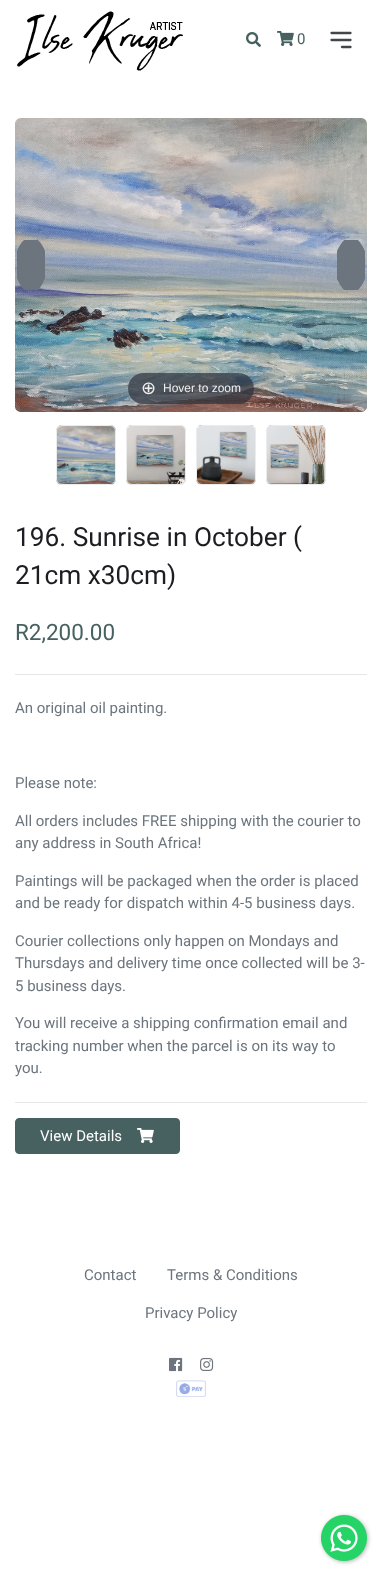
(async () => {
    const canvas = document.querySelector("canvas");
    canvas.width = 382;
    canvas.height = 1576;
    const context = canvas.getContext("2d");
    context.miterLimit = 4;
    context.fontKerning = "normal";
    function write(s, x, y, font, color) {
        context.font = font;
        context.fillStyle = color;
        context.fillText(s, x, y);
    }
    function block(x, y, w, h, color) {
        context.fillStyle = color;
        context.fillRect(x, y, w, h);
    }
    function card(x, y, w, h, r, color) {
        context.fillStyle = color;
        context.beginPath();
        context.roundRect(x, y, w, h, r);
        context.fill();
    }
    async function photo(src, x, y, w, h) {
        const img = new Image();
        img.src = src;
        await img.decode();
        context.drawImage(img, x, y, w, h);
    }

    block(0, 0, 382, 1576, "rgb(255, 255, 255)");
    await photo("media/1.png", 17, 11, 166, 60);
    await photo("media/2.png", 246, 32, 15, 15);
    await photo("media/3.png", 277, 31, 17, 15);
    write("0", 297, 44, "15px Roboto", "rgb(71, 97, 96)");
    context.beginPath();
    context.moveTo(331.5, 33);
    context.lineTo(350.5, 33);
    context.moveTo(331.5, 40);
    context.lineTo(350.5, 40);
    context.moveTo(342, 47);
    context.lineTo(350.5, 47);
    context.strokeStyle = "rgb(65, 70, 75)";
    context.lineWidth = 2.3;
    context.lineCap = "round";
    context.lineJoin = "round";
    context.stroke();
    await photo("media/4.png", 15, 118, 352, 294);
    context.fillStyle = "rgb(108, 117, 125)";
    context.beginPath();
    context.moveTo(38, 290);
    context.lineTo(24, 290);
    context.bezierCurveTo(21, 287, 19, 283, 17, 278);
    context.lineTo(17, 251);
    context.bezierCurveTo(19, 246, 21, 243, 24, 240);
    context.lineTo(38, 240);
    context.bezierCurveTo(41, 243, 43, 246, 45, 251);
    context.lineTo(45, 278);
    context.bezierCurveTo(43, 283, 41, 287, 38, 290);
    context.closePath();
    context.fill();
    context.beginPath();
    context.moveTo(337, 251);
    context.bezierCurveTo(339, 247, 341, 243, 344, 240);
    context.lineTo(358, 240);
    context.bezierCurveTo(361, 243, 363, 247, 365, 251);
    context.lineTo(365, 279);
    context.bezierCurveTo(363, 283, 361, 287, 358, 290);
    context.lineTo(344, 290);
    context.bezierCurveTo(341, 287, 339, 283, 337, 279);
    context.closePath();
    context.fill();
    card(128, 373, 126, 31, 15.5, "rgba(49, 51, 61, 0.7)");
    write("⊕", 141, 394, "18px DejaVu Sans", "rgb(238, 238, 238)");
    write("Hover to zoom", 163, 392, "12px Liberation Sans", "rgb(238, 238, 238)");
    await photo("media/5.png", 56, 425, 60, 60);
    context.beginPath();
    context.roundRect(56.5, 425.5, 59, 59, 5.5);
    context.strokeStyle = "rgb(236, 236, 236)";
    context.lineWidth = 1;
    context.lineJoin = "miter";
    context.stroke();
    await photo("media/6.png", 126, 425, 60, 60);
    context.beginPath();
    context.roundRect(126.5, 425.5, 59, 59, 5.5);
    context.stroke();
    await photo("media/7.png", 196, 425, 60, 60);
    context.beginPath();
    context.roundRect(196.5, 425.5, 59, 59, 5.5);
    context.stroke();
    await photo("media/8.png", 266, 425, 60, 60);
    context.beginPath();
    context.roundRect(266.5, 425.5, 59, 59, 5.5);
    context.stroke();
    write("196. Sunrise in October (", 15, 546, "26.25px Roboto", "rgb(29, 28, 33)");
    write("21cm x30cm)", 15, 584, "26.25px Roboto", "rgb(29, 28, 33)");
    write("R2,200.00", 15, 640, "22.5px Roboto", "rgb(71, 97, 96)");
    block(15, 674, 352, 1, "rgb(230, 230, 230)");
    write("An original oil painting.", 15, 713, "15px Roboto", "rgb(108, 117, 125)");
    write("Please note:", 15, 788, "15px Roboto", "rgb(108, 117, 125)");
    write("All orders includes FREE shipping with the courier to", 15, 826, "15px Roboto", "rgb(108, 117, 125)");
    write("any address in South Africa!", 15, 848, "15px Roboto", "rgb(108, 117, 125)");
    write("Paintings will be packaged when the order is placed", 15, 886, "15px Roboto", "rgb(108, 117, 125)");
    write("and be ready for dispatch within 4-5 business days.", 15, 908, "15px Roboto", "rgb(108, 117, 125)");
    write("Courier collections only happen on Mondays and", 15, 946, "15px Roboto", "rgb(108, 117, 125)");
    write("Thursdays and delivery time once collected will be 3-", 15, 968, "15px Roboto", "rgb(108, 117, 125)");
    write("5 business days.", 15, 991, "15px Roboto", "rgb(108, 117, 125)");
    write("You will receive a shipping confirmation email and", 15, 1028, "15px Roboto", "rgb(108, 117, 125)");
    write("tracking number when the parcel is on its way to", 15, 1051, "15px Roboto", "rgb(108, 117, 125)");
    write("you.", 15, 1073, "15px Roboto", "rgb(108, 117, 125)");
    block(15, 1102, 352, 1, "rgb(230, 230, 230)");
    context.fillStyle = "rgb(71, 97, 96)";
    context.beginPath();
    context.roundRect(15.5, 1118.5, 164, 35, 3.5);
    context.fill();
    context.strokeStyle = "rgb(71, 97, 96)";
    context.stroke();
    write("View Details", 40, 1141, "15px Roboto", "rgb(255, 255, 255)");
    await photo("media/9.png", 137, 1128, 17, 15);
    write("Contact", 84, 1280, "15px Roboto", "rgb(108, 117, 125)");
    write("Terms & Conditions", 167, 1280, "15px Roboto", "rgb(108, 117, 125)");
    write("Privacy Policy", 145, 1318, "15px Roboto", "rgb(108, 117, 125)");
    await photo("media/10.png", 169, 1357, 14, 15);
    await photo("media/11.png", 200, 1358, 14, 13);
    await photo("media/12.png", 176, 1380, 30, 17);
    context.fillStyle = "rgba(60, 60, 60, 0.4)";
    context.filter = "blur(2px)";
    context.beginPath();
    context.roundRect(322, 1516, 46, 46, 23);
    context.fill();
    context.filter = "none";
    await photo("media/13.png", 321, 1515, 46, 46);
})();
